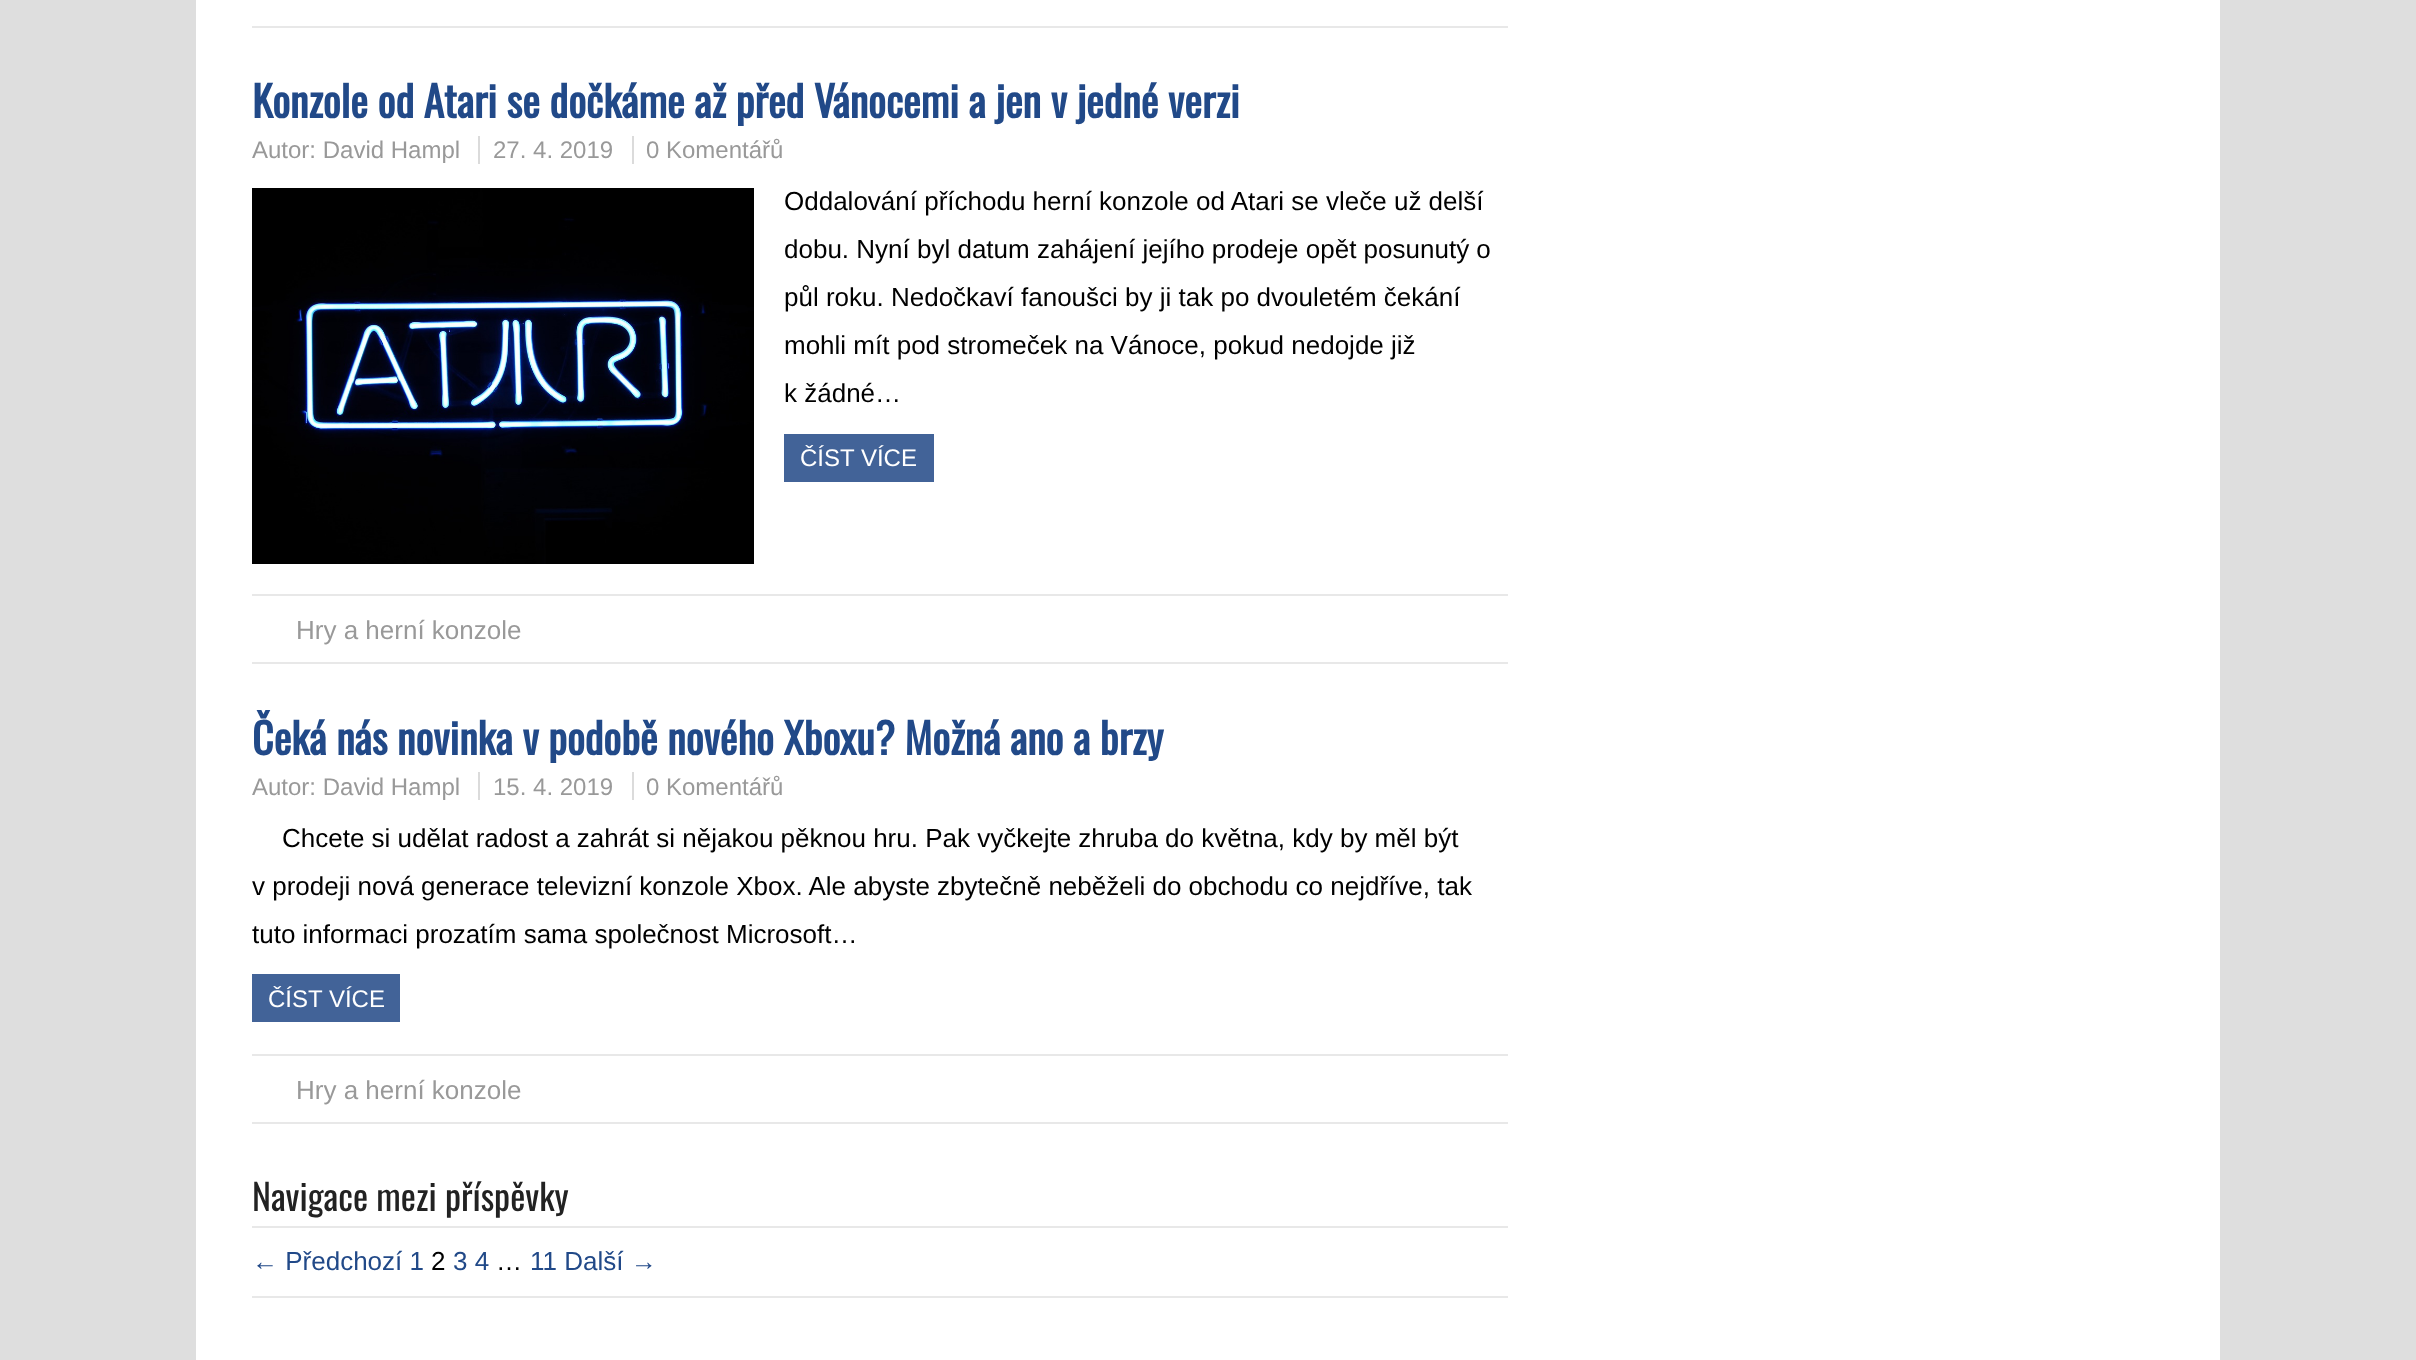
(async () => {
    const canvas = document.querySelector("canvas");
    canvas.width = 2416;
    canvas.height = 1360;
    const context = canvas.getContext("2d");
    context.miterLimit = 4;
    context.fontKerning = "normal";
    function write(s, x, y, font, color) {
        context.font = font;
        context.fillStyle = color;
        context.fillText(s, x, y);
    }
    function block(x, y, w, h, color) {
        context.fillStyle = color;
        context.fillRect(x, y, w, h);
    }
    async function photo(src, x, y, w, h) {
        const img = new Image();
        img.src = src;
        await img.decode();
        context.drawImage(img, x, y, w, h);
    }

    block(0, 0, 2416, 1360, "rgb(222, 222, 222)");
    block(196, 0, 2024, 1360, "rgb(255, 255, 255)");
    block(252, 26, 1256, 2, "rgb(232, 232, 232)");
    block(252, 662, 1256, 2, "rgb(232, 232, 232)");
    write("Konzole od Atari se dočkáme až před Vánocemi a jen v jedné verzi", 252, 118, "bold 42px Oswald", "rgb(33, 73, 136)");
    write("Autor: David Hampl", 252, 158, "24px Liberation Sans", "rgb(153, 153, 153)");
    write("27. 4. 2019", 493, 158, "24px Liberation Sans", "rgb(153, 153, 153)");
    block(478, 136, 2, 28, "rgb(219, 219, 219)");
    write("0 Komentářů", 646, 158, "24px Liberation Sans", "rgb(153, 153, 153)");
    block(632, 136, 2, 28, "rgb(219, 219, 219)");
    await photo("media/1.png", 252, 188, 502, 376);
    write("Oddalování příchodu herní konzole od Atari se vleče už delší", 784, 210, "26px Liberation Sans", "rgb(0, 0, 0)");
    write("dobu. Nyní byl datum zahájení jejího prodeje opět posunutý o", 784, 258, "26px Liberation Sans", "rgb(0, 0, 0)");
    write("půl roku. Nedočkaví fanoušci by ji tak po dvouletém čekání", 784, 306, "26px Liberation Sans", "rgb(0, 0, 0)");
    write("mohli mít pod stromeček na Vánoce, pokud nedojde již", 784, 354, "26px Liberation Sans", "rgb(0, 0, 0)");
    write("k žádné…", 784, 402, "26px Liberation Sans", "rgb(0, 0, 0)");
    block(784, 434, 150, 48, "rgb(66, 99, 152)");
    write("ČÍST VÍCE", 800, 466, "24px Liberation Sans", "rgb(255, 255, 255)");
    block(252, 594, 1256, 2, "rgb(232, 232, 232)");
    write("Hry a herní konzole", 296, 639, "26px Liberation Sans", "rgb(153, 153, 153)");
    block(252, 1122, 1256, 2, "rgb(232, 232, 232)");
    write("Čeká nás novinka v podobě nového Xboxu? Možná ano a brzy", 252, 755, "bold 42px Oswald", "rgb(33, 73, 136)");
    write("Autor: David Hampl", 252, 795, "24px Liberation Sans", "rgb(153, 153, 153)");
    write("15. 4. 2019", 493, 795, "24px Liberation Sans", "rgb(153, 153, 153)");
    block(478, 772, 2, 28, "rgb(219, 219, 219)");
    write("0 Komentářů", 646, 795, "24px Liberation Sans", "rgb(153, 153, 153)");
    block(632, 772, 2, 28, "rgb(219, 219, 219)");
    write("Chcete si udělat radost a zahrát si nějakou pěknou hru. Pak vyčkejte zhruba do května, kdy by měl být", 282, 847, "26px Liberation Sans", "rgb(0, 0, 0)");
    write("v prodeji nová generace televizní konzole Xbox. Ale abyste zbytečně neběželi do obchodu co nejdříve, tak", 252, 895, "26px Liberation Sans", "rgb(0, 0, 0)");
    write("tuto informaci prozatím sama společnost Microsoft…", 252, 943, "26px Liberation Sans", "rgb(0, 0, 0)");
    block(252, 974, 148, 48, "rgb(66, 99, 152)");
    write("ČÍST VÍCE", 268, 1007, "24px Liberation Sans", "rgb(255, 255, 255)");
    block(252, 1054, 1256, 2, "rgb(232, 232, 232)");
    write("Hry a herní konzole", 296, 1099, "26px Liberation Sans", "rgb(153, 153, 153)");
    write("Navigace mezi příspěvky", 252, 1211, "36px Oswald", "rgb(34, 34, 34)");
    block(252, 1226, 1256, 2, "rgb(232, 232, 232)");
    block(252, 1296, 1256, 2, "rgb(232, 232, 232)");
    write("← Předchozí 1", 252, 1270, "26px Liberation Sans", "rgb(33, 73, 136)");
    write("2", 431, 1270, "26px Liberation Sans", "rgb(0, 0, 0)");
    write("3 4", 453, 1270, "26px Liberation Sans", "rgb(33, 73, 136)");
    write("…", 496, 1270, "26px Liberation Sans", "rgb(0, 0, 0)");
    write("11 Další →", 530, 1270, "26px Liberation Sans", "rgb(33, 73, 136)");
})();
